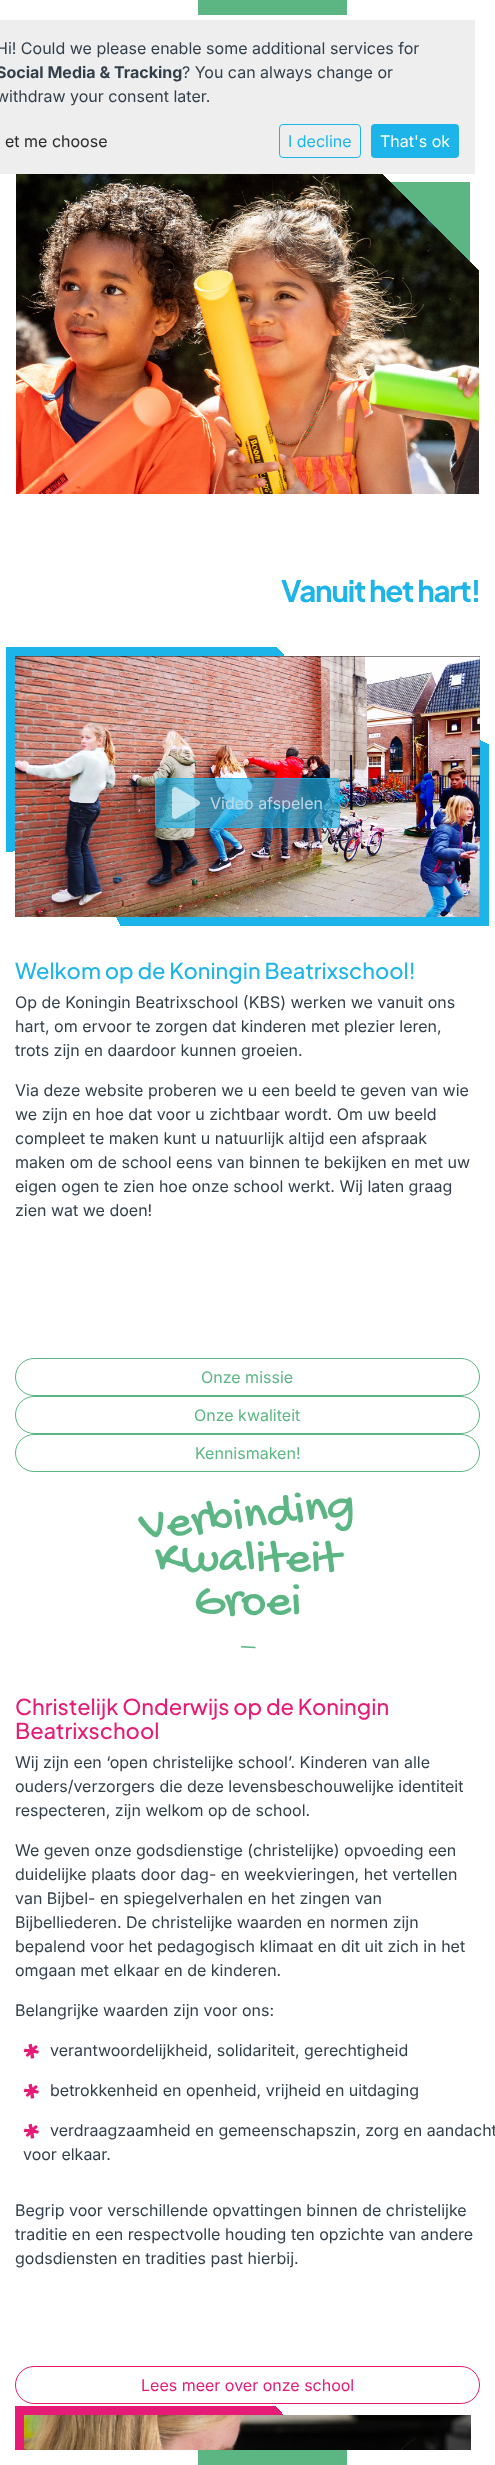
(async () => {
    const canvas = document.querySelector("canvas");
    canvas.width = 495;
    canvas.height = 2465;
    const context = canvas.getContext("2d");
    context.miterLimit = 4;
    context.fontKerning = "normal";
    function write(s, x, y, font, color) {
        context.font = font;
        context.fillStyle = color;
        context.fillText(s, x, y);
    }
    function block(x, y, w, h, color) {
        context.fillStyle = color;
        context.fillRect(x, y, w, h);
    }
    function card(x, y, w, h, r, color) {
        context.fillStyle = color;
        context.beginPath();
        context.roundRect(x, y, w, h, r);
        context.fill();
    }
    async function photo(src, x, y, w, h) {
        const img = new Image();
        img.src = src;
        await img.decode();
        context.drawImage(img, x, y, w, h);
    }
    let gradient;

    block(0, 0, 495, 2465, "rgb(255, 255, 255)");
    block(0, 20, 475, 154, "rgb(238, 238, 238)");
    write("Hi! Could we please enable some additional services for", -4, 54, "16px Inter", "rgb(50, 63, 75)");
    write("Social Media & Tracking", -4, 78, "bold 16px Inter", "rgb(50, 63, 75)");
    write("? You can always change or", 182, 78, "16px Inter", "rgb(50, 63, 75)");
    write("withdraw your consent later.", -4, 102, "16px Inter", "rgb(50, 63, 75)");
    write("et me choose", 5, 147, "16px Inter", "rgb(41, 41, 41)");
    context.beginPath();
    context.roundRect(279.5, 124.5, 81, 33, 3.5);
    context.strokeStyle = "rgb(29, 180, 233)";
    context.stroke();
    write("I decline", 288, 147, "16px Inter", "rgb(29, 180, 233)");
    card(371, 124, 88, 34, 4, "rgb(29, 180, 233)");
    write("That's ok", 380, 147, "16px Inter", "rgb(255, 255, 255)");
    block(198, 0, 149, 15, "rgb(91, 182, 132)");
    await photo("media/1.png", 16, 174, 463, 320);
    context.letterSpacing = "-1.2px";
    write("Vanuit het hart!", 281, 602, "bold 29.5px Plus Jakarta Sans", "rgb(29, 180, 233)");
    gradient = context.createRadialGradient(344, 1316.01, 0, 344, 1316.01, 478);
    gradient.addColorStop(0.5, "rgb(29, 180, 233)");
    gradient.addColorStop(0.5, "rgb(255, 255, 255)");
    context.fillStyle = gradient;
    context.beginPath();
    context.rect(105, 712, 384, 214);
    context.save();
    context.clip();
    context.scale(1, 316 / 478);
    context.fillRect(0, 0, 495, 3729);
    context.restore();
    gradient = context.createRadialGradient(-139, 1975.52, 0, -139, 1975.52, 888);
    gradient.addColorStop(0.5, "rgb(29, 180, 233)");
    gradient.addColorStop(0.5, "rgba(29, 180, 233, 0)");
    context.fillStyle = gradient;
    context.beginPath();
    context.rect(6, 647, 279, 205);
    context.save();
    context.clip();
    context.scale(1, 316 / 888);
    context.fillRect(0, 0, 495, 6927);
    context.restore();
    await photo("media/2.png", 15, 656, 465, 261);
    card(155, 778, 185, 50, 4, "rgba(29, 180, 233, 0.65)");
    context.beginPath();
    context.roundRect(155.5, 778.5, 184, 49, 3.5);
    context.strokeStyle = "rgba(29, 180, 233, 0.65)";
    context.stroke();
    await photo("media/3.png", 172, 787, 28, 32);
    context.letterSpacing = "0px";
    write("Video afspelen", 210, 809, "16px Inter", "rgb(191, 217, 230)");
    write("Welkom op de Koningin Beatrixschool!", 15, 979, "500 21.9px Plus Jakarta Sans", "rgb(29, 180, 233)");
    write("Op de Koningin Beatrixschool (KBS) werken we vanuit ons", 15, 1008, "16px Inter", "rgb(50, 63, 75)");
    write("hart, om ervoor te zorgen dat kinderen met plezier leren,", 15, 1032, "16px Inter", "rgb(50, 63, 75)");
    write("trots zijn en daardoor kunnen groeien.", 15, 1056, "16px Inter", "rgb(50, 63, 75)");
    write("Via deze website proberen we u een beeld te geven van wie", 15, 1096, "16px Inter", "rgb(50, 63, 75)");
    write("we zijn en hoe dat voor u zichtbaar wordt. Om uw beeld", 15, 1120, "16px Inter", "rgb(50, 63, 75)");
    write("compleet te maken kunt u natuurlijk altijd een afspraak", 15, 1144, "16px Inter", "rgb(50, 63, 75)");
    write("maken om de school eens van binnen te bekijken en met uw", 15, 1168, "16px Inter", "rgb(50, 63, 75)");
    write("eigen ogen te zien hoe onze school werkt. Wij laten graag", 15, 1192, "16px Inter", "rgb(50, 63, 75)");
    write("zien wat we doen!", 15, 1216, "16px Inter", "rgb(50, 63, 75)");
    context.beginPath();
    context.roundRect(15.5, 1358.5, 464, 37, 18.5);
    context.strokeStyle = "rgb(91, 182, 132)";
    context.stroke();
    write("Onze missie", 201, 1383, "16px Inter", "rgb(91, 182, 132)");
    context.beginPath();
    context.roundRect(15.5, 1396.5, 464, 37, 18.5);
    context.stroke();
    write("Onze kwaliteit", 194, 1421, "16px Inter", "rgb(91, 182, 132)");
    context.beginPath();
    context.roundRect(15.5, 1434.5, 464, 37, 18.5);
    context.stroke();
    write("Kennismaken!", 195, 1459, "16px Inter", "rgb(91, 182, 132)");
    context.font = "48px Gochi Hand";
    context.save();
    context.translate(141, 1538);
    context.rotate(-6 * Math.PI / 180);
    context.fillText("Verbinding", 0, 0);
    context.restore();
    write("Kwaliteit", 155, 1570, "48px Gochi Hand", "rgb(91, 182, 132)");
    write("Groei", 194, 1613, "48px Gochi Hand", "rgb(91, 182, 132)");
    context.font = "16px Gochi Hand";
    context.save();
    context.translate(245, 1645);
    context.rotate(93 * Math.PI / 180);
    context.fillText("|", 0, 0);
    context.restore();
    write("Christelijk Onderwijs op de Koningin", 15, 1715, "500 21.9px Plus Jakarta Sans", "rgb(230, 27, 119)");
    write("Beatrixschool", 15, 1739, "500 21.9px Plus Jakarta Sans", "rgb(230, 27, 119)");
    write("Wij zijn een ‘open christelijke school’. Kinderen van alle", 15, 1768, "16px Inter", "rgb(50, 63, 75)");
    write("ouders/verzorgers die deze levensbeschouwelijke identiteit", 15, 1792, "16px Inter", "rgb(50, 63, 75)");
    write("respecteren, zijn welkom op de school.", 15, 1816, "16px Inter", "rgb(50, 63, 75)");
    write("We geven onze godsdienstige (christelijke) opvoeding een", 15, 1856, "16px Inter", "rgb(50, 63, 75)");
    write("duidelijke plaats door dag- en weekvieringen, het vertellen", 15, 1880, "16px Inter", "rgb(50, 63, 75)");
    write("van Bijbel- en spiegelverhalen en het zingen van", 15, 1904, "16px Inter", "rgb(50, 63, 75)");
    write("Bijbelliederen. De christelijke waarden en normen zijn", 15, 1928, "16px Inter", "rgb(50, 63, 75)");
    write("bepalend voor het pedagogisch klimaat en dit uit zich in het", 15, 1952, "16px Inter", "rgb(50, 63, 75)");
    write("omgaan met elkaar en de kinderen.", 15, 1976, "16px Inter", "rgb(50, 63, 75)");
    write("Belangrijke waarden zijn voor ons:", 15, 2016, "16px Inter", "rgb(50, 63, 75)");
    write("*", 23, 2070, "48px Gochi Hand", "rgb(230, 27, 119)");
    write("verantwoordelijkheid, solidariteit, gerechtigheid", 50, 2056, "16px Inter", "rgb(50, 63, 75)");
    write("*", 23, 2110, "48px Gochi Hand", "rgb(230, 27, 119)");
    write("betrokkenheid en openheid, vrijheid en uitdaging", 50, 2096, "16px Inter", "rgb(50, 63, 75)");
    write("*", 23, 2150, "48px Gochi Hand", "rgb(230, 27, 119)");
    write("verdraagzaamheid en gemeenschapszin, zorg en aandacht", 50, 2136, "16px Inter", "rgb(50, 63, 75)");
    write("voor elkaar.", 23, 2160, "16px Inter", "rgb(50, 63, 75)");
    write("Begrip voor verschillende opvattingen binnen de christelijke", 15, 2216, "16px Inter", "rgb(50, 63, 75)");
    write("traditie en een respectvolle houding ten opzichte van andere", 15, 2240, "16px Inter", "rgb(50, 63, 75)");
    write("godsdiensten en tradities past hierbij.", 15, 2264, "16px Inter", "rgb(50, 63, 75)");
    context.beginPath();
    context.roundRect(15.5, 2366.5, 464, 37, 18.5);
    context.strokeStyle = "rgb(230, 27, 119)";
    context.stroke();
    write("Lees meer over onze school", 141, 2391, "16px Inter", "rgb(230, 27, 119)");
    gradient = context.createRadialGradient(-124, 6219.56, 0, -124, 6219.56, 855);
    gradient.addColorStop(0.5, "rgb(230, 27, 119)");
    gradient.addColorStop(0.5, "rgb(255, 255, 255)");
    context.fillStyle = gradient;
    context.beginPath();
    context.rect(15, 2406, 286, 44);
    context.save();
    context.clip();
    context.scale(1, 339 / 855);
    context.fillRect(0, 0, 495, 6218);
    context.restore();
    await photo("media/4.png", 24, 2415, 447, 35);
    block(198, 2450, 149, 15, "rgb(91, 182, 132)");
})();
